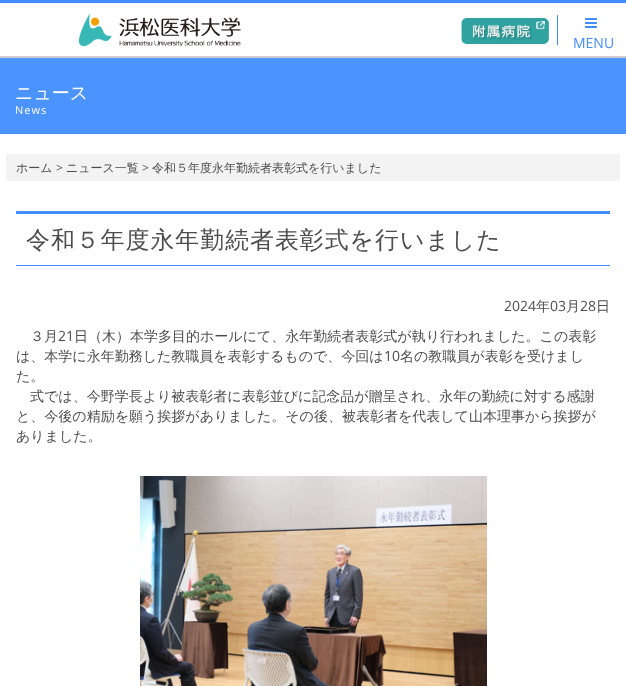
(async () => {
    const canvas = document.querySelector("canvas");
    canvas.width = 626;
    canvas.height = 686;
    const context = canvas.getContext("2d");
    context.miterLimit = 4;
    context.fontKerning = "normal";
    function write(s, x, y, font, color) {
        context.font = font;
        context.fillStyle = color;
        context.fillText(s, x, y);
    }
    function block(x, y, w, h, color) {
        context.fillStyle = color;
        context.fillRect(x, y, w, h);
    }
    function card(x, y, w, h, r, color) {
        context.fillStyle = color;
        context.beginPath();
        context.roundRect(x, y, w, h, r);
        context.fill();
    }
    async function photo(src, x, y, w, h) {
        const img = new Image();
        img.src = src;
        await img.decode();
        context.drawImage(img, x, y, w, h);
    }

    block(0, 0, 626, 686, "rgb(255, 255, 255)");
    block(0, 0, 626, 3, "rgb(65, 141, 255)");
    block(0, 56, 626, 2, "rgb(204, 204, 204)");
    await photo("media/1.png", 79, 13, 162, 34);
    await photo("media/2.png", 461, 18, 88, 26);
    block(557, 15, 1, 30, "rgb(65, 140, 255)");
    await photo("media/3.png", 585, 18, 12, 10);
    write("MENU", 573, 48, "14px Open Sans", "rgb(65, 140, 255)");
    block(0, 58, 626, 76, "rgb(75, 147, 255)");
    write("ニュース", 15, 99, "500 18px WenQuanYi Zen Hei", "rgb(255, 255, 255)");
    context.letterSpacing = "1px";
    write("News", 15, 114, "11px Open Sans", "rgb(255, 255, 255)");
    card(6, 154, 614, 27, 2, "rgb(243, 243, 243)");
    context.letterSpacing = "0px";
    write("ホーム", 16, 172, "500 12px WenQuanYi Zen Hei", "rgb(77, 77, 77)");
    write(">", 56, 172, "12px Open Sans", "rgb(77, 77, 77)");
    write("ニュース一覧", 66, 172, "500 12px WenQuanYi Zen Hei", "rgb(77, 77, 77)");
    write(">", 142, 172, "12px Open Sans", "rgb(77, 77, 77)");
    write("令和５年度永年勤続者表彰式を行いました", 152, 172, "500 12px WenQuanYi Zen Hei", "rgb(77, 77, 77)");
    block(16, 211, 594, 3, "rgb(65, 141, 255)");
    block(16, 265, 594, 1, "rgb(65, 141, 255)");
    context.letterSpacing = "1px";
    write("令和５年度永年勤続者表彰式を行いました", 26, 248, "500 23.9px WenQuanYi Zen Hei", "rgb(77, 77, 77)");
    context.letterSpacing = "0px";
    write("2024", 504, 311, "14px Open Sans", "rgb(77, 77, 77)");
    write("年", 536, 311, "500 14px WenQuanYi Zen Hei", "rgb(77, 77, 77)");
    write("03", 550, 311, "14px Open Sans", "rgb(77, 77, 77)");
    write("月", 566, 311, "500 14px WenQuanYi Zen Hei", "rgb(77, 77, 77)");
    write("28", 580, 311, "14px Open Sans", "rgb(77, 77, 77)");
    write("日", 596, 311, "500 14px WenQuanYi Zen Hei", "rgb(77, 77, 77)");
    write("３月", 30, 341, "500 14px WenQuanYi Zen Hei", "rgb(77, 77, 77)");
    write("21", 58, 341, "14px Open Sans", "rgb(77, 77, 77)");
    write("日（木）本学多目的ホールにて、永年勤続者表彰式が執り行われました。この表彰", 74, 341, "500 14px WenQuanYi Zen Hei", "rgb(77, 77, 77)");
    write("は、本学に永年勤務した教職員を表彰するもので、今回は", 16, 361, "500 14px WenQuanYi Zen Hei", "rgb(77, 77, 77)");
    write("10", 384, 361, "14px Open Sans", "rgb(77, 77, 77)");
    write("名の教職員が表彰を受けまし", 400, 361, "500 14px WenQuanYi Zen Hei", "rgb(77, 77, 77)");
    write("た。", 16, 381, "500 14px WenQuanYi Zen Hei", "rgb(77, 77, 77)");
    write("式では、今野学長より被表彰者に表彰並びに記念品が贈呈され、永年の勤続に対する感謝", 30, 401, "500 14px WenQuanYi Zen Hei", "rgb(77, 77, 77)");
    write("と、今後の精励を願う挨拶がありました。その後、被表彰者を代表して山本理事から挨拶が", 16, 421, "500 14px WenQuanYi Zen Hei", "rgb(77, 77, 77)");
    write("ありました。", 16, 441, "500 14px WenQuanYi Zen Hei", "rgb(77, 77, 77)");
    await photo("media/4.png", 140, 476, 347, 210);
})();
